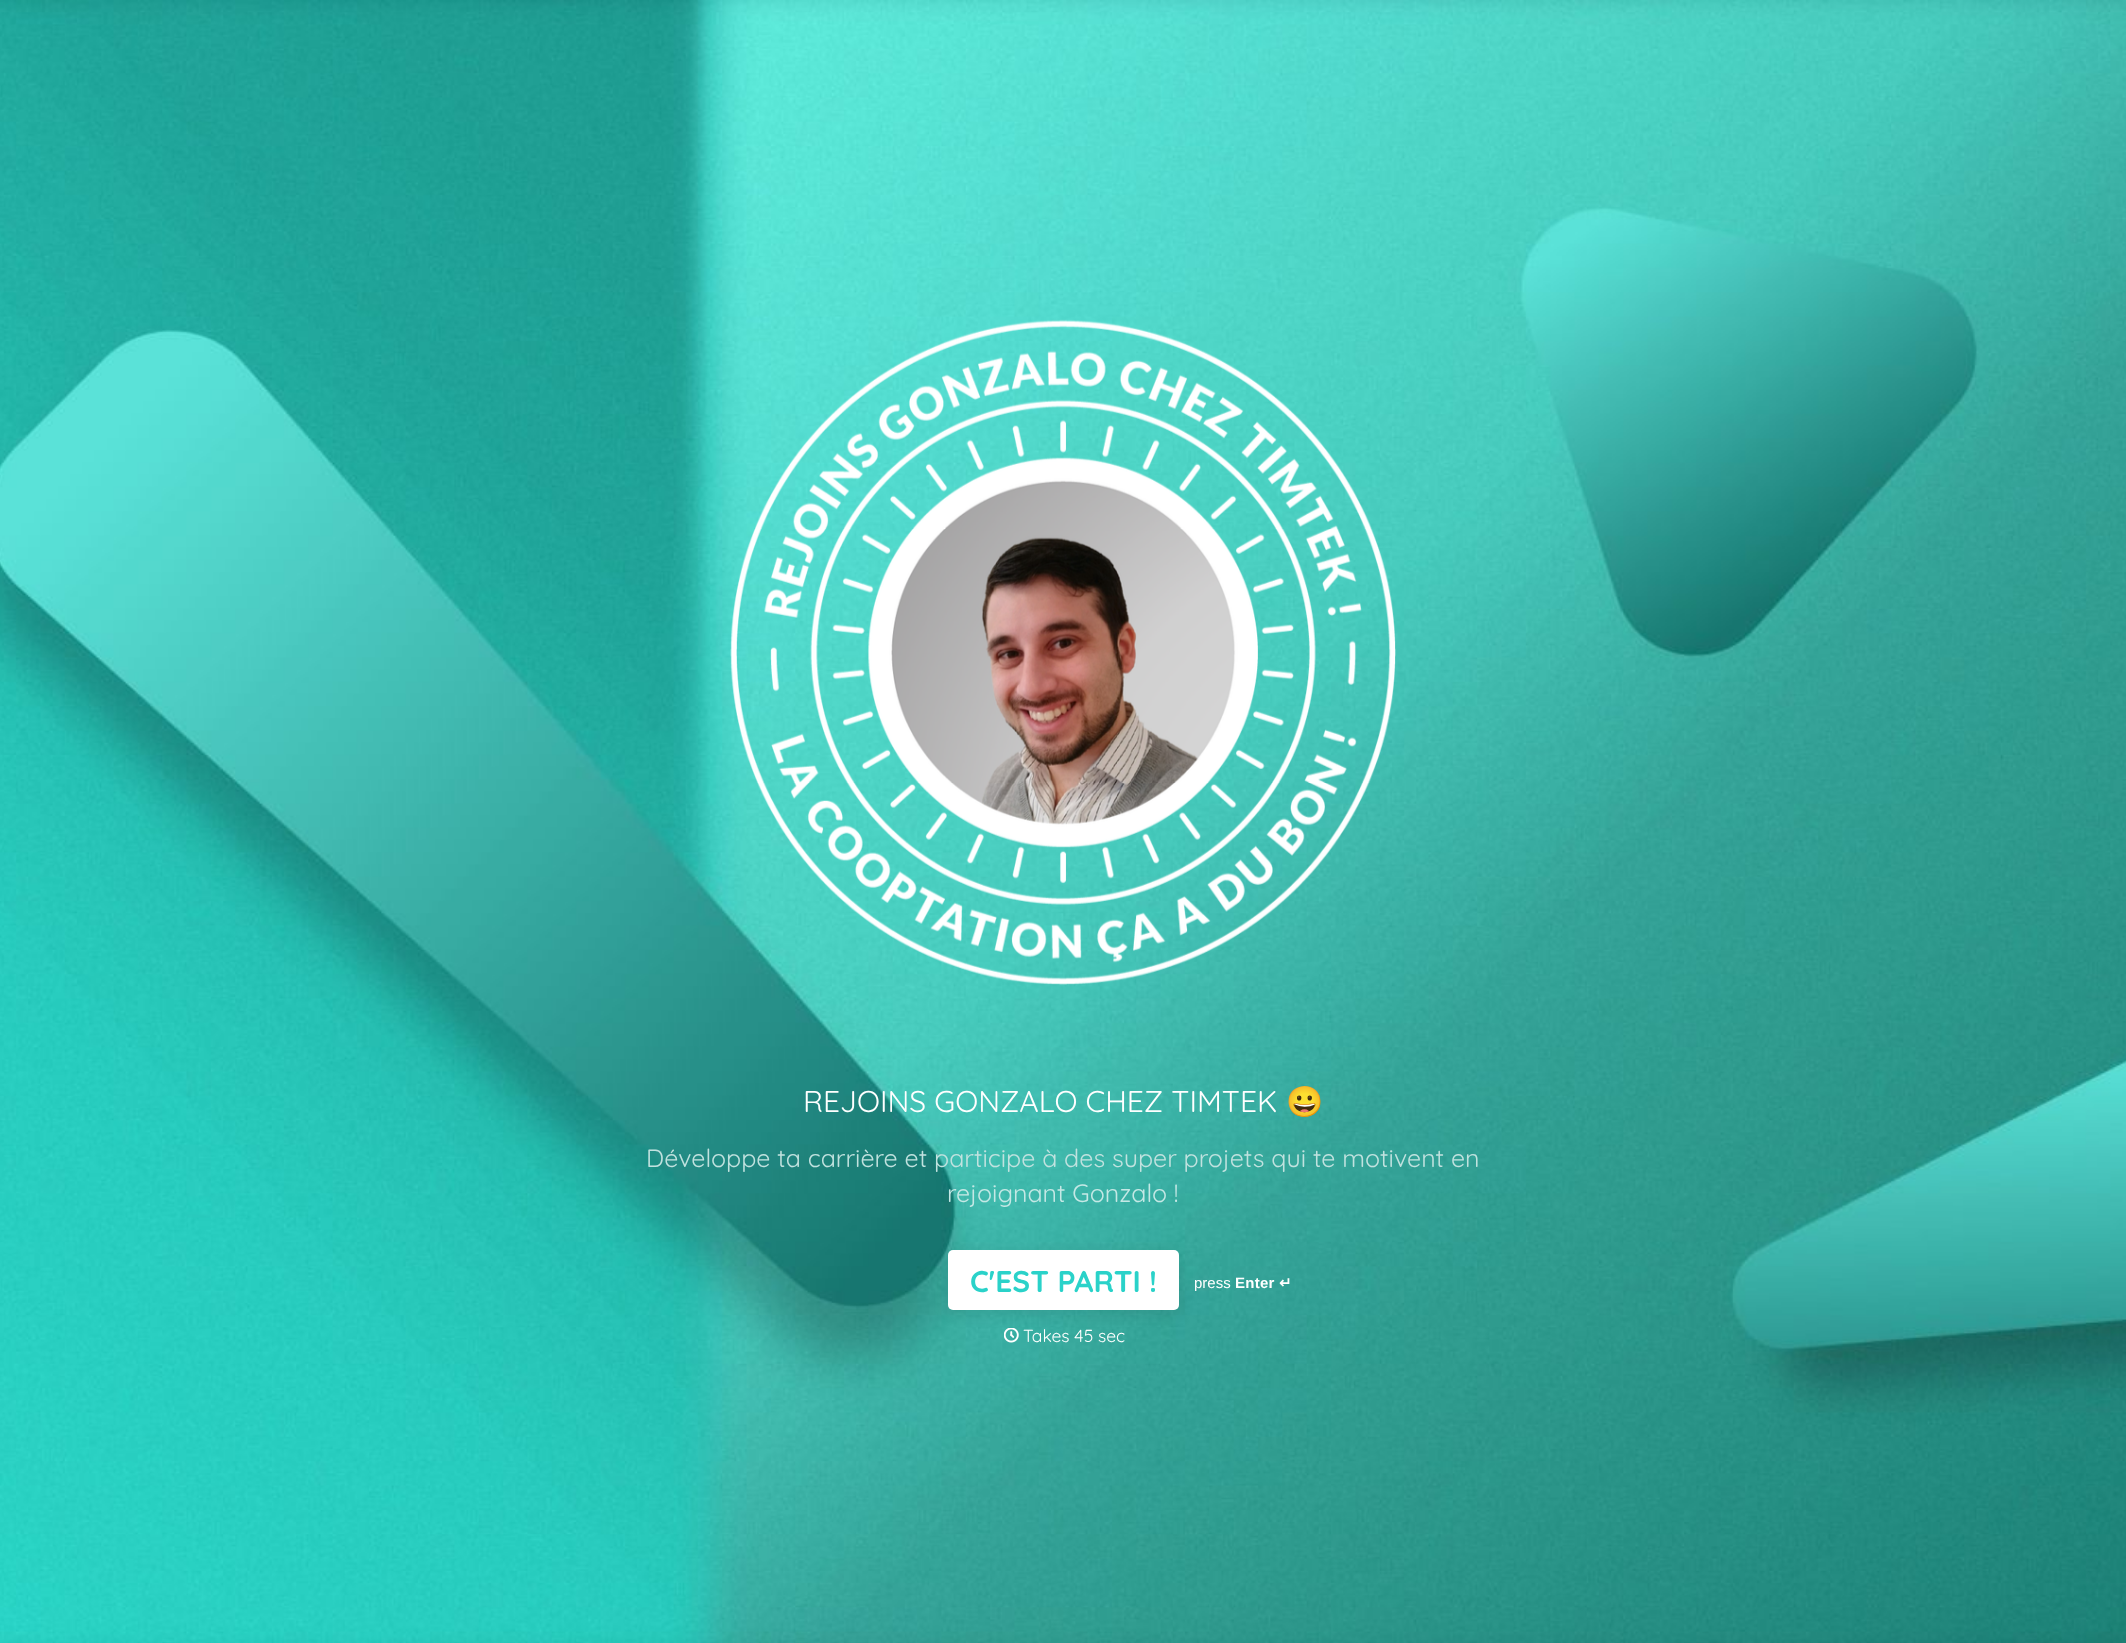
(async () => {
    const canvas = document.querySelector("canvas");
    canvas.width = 2126;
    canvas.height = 1643;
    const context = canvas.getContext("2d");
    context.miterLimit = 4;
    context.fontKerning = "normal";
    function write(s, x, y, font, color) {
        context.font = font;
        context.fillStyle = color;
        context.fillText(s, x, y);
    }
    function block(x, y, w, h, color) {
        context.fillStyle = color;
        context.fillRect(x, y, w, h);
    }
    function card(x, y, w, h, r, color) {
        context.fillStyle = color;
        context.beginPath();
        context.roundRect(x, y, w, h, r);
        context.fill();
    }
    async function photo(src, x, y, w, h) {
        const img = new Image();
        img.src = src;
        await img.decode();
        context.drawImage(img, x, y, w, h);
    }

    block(0, 0, 2126, 1643, "rgb(255, 255, 255)");
    await photo("media/1.png", 0, 0, 2126, 1643);
    await photo("media/2.png", 730, 319, 666, 666);
    write("REJOINS GONZALO CHEZ TIMTEK", 803, 1112, "300 30px Quicksand", "rgb(255, 255, 255)");
    write("😀", 1286, 1112, "30px Noto Color Emoji", "rgb(255, 255, 255)");
    write("Développe ta carrière et participe à des super projets qui te motivent en", 646, 1167, "300 25px Quicksand", "rgb(193, 226, 223)");
    write("rejoignant Gonzalo !", 947, 1202, "300 25px Quicksand", "rgb(197, 232, 229)");
    context.fillStyle = "rgba(0, 0, 0, 0.1)";
    context.filter = "blur(7.5px)";
    context.beginPath();
    context.roundRect(948, 1254, 231, 60, 5);
    context.fill();
    context.filter = "none";
    card(948, 1250, 231, 60, 5, "rgb(255, 255, 255)");
    write("C'EST PARTI !", 970, 1292, "300 30px 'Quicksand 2'", "rgb(42, 210, 201)");
    write("press", 1194, 1288, "15px Liberation Sans", "rgb(255, 255, 255)");
    context.letterSpacing = "0.25px";
    write("Enter", 1235, 1288, "bold 15px Liberation Sans", "rgb(255, 255, 255)");
    write("↵", 1279, 1288, "bold 15px DejaVu Sans", "rgb(255, 255, 255)");
    await photo("media/3.png", 1004, 1328, 15, 15);
    context.letterSpacing = "0px";
    write("Takes 45 sec", 1023, 1342, "300 17.5px Quicksand", "rgb(255, 255, 255)");
})();
